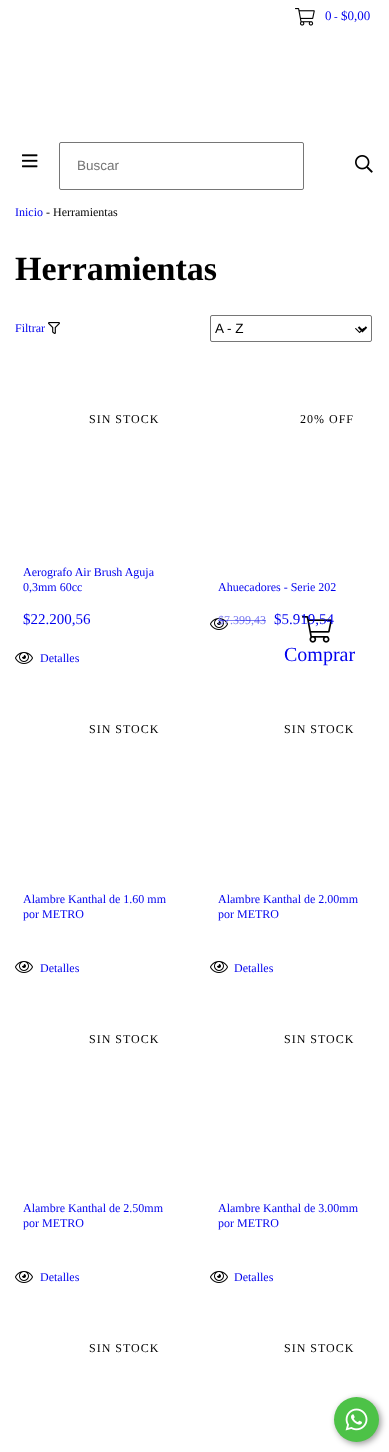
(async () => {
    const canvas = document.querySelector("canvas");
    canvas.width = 389;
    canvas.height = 1452;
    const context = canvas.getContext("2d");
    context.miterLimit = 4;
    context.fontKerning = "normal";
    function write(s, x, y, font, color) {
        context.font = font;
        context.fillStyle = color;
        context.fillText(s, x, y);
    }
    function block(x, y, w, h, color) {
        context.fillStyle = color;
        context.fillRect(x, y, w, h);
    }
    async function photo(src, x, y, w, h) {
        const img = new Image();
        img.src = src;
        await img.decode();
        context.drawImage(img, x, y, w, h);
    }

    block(0, 0, 389, 1452, "rgb(255, 255, 255)");
    await photo("media/1.png", 295, 8, 20, 18);
    write("0", 325, 20, "13px Liberation Serif", "rgb(0, 0, 238)");
    write("-", 334, 20, "11px Liberation Serif", "rgb(0, 0, 238)");
    write("$0,00", 341, 20, "13px Liberation Serif", "rgb(0, 0, 238)");
    await photo("media/2.png", 22, 154, 16, 14);
    context.beginPath();
    context.roundRect(59.5, 142.5, 244, 47, 1.5);
    context.strokeStyle = "rgb(118, 118, 118)";
    context.stroke();
    write("Buscar", 77, 170, "13.5px Liberation Sans", "rgb(117, 117, 117)");
    await photo("media/3.png", 355, 155, 18, 18);
    write("Inicio", 15, 216, "12px Liberation Serif", "rgb(0, 0, 238)");
    write("- Herramientas", 46, 216, "12px Liberation Serif", "rgb(0, 0, 0)");
    write("Herramientas", 15, 280, "bold 34px Liberation Serif", "rgb(0, 0, 0)");
    write("Filtrar", 15, 332, "12px Liberation Serif", "rgb(0, 0, 238)");
    await photo("media/4.png", 48, 322, 12, 12);
    context.beginPath();
    context.roundRect(210.5, 315.5, 161, 26, 1.5);
    context.stroke();
    context.beginPath();
    context.moveTo(358.5, 327);
    context.lineTo(362.5, 331);
    context.lineTo(366.5, 327);
    context.strokeStyle = "rgb(0, 0, 0)";
    context.lineWidth = 2;
    context.stroke();
    write("A - Z", 215, 333, "13.5px Liberation Sans", "rgb(0, 0, 0)");
    await photo("media/5.png", 355, 328, 9, 6);
    context.letterSpacing = "1px";
    write("SIN STOCK", 89, 423, "12px Liberation Serif", "rgb(0, 0, 0)");
    context.letterSpacing = "0px";
    write("Aerografo Air Brush Aguja", 23, 576, "12px Liberation Serif", "rgb(0, 0, 238)");
    write("0,3mm 60cc", 23, 591, "12px Liberation Serif", "rgb(0, 0, 238)");
    write("$22.200,56", 23, 624, "15px Liberation Serif", "rgb(0, 0, 238)");
    await photo("media/6.png", 15, 652, 18, 12);
    write("Detalles", 40, 662, "12px Liberation Serif", "rgb(0, 0, 238)");
    context.letterSpacing = "1px";
    write("20% OFF", 300, 423, "12px Liberation Serif", "rgb(0, 0, 0)");
    context.letterSpacing = "0px";
    write("Ahuecadores - Serie 202", 218, 591, "12px Liberation Serif", "rgb(0, 0, 238)");
    await photo("media/6.png", 210, 618, 18, 12);
    write("$7.399,43", 218, 624, "12px Liberation Serif", "rgb(120, 120, 239)");
    block(218, 620, 48, 1, "rgba(0, 0, 238, 0.5)");
    await photo("media/7.png", 302, 616, 30, 27);
    write("$5.919,54", 274, 624, "15px Liberation Serif", "rgb(0, 0, 238)");
    write("Comprar", 284, 661, "20px Liberation Serif", "rgb(0, 0, 238)");
    context.letterSpacing = "1px";
    write("SIN STOCK", 89, 733, "12px Liberation Serif", "rgb(0, 0, 0)");
    context.letterSpacing = "0px";
    write("Alambre Kanthal de 1.60 mm", 23, 903, "12px Liberation Serif", "rgb(0, 0, 238)");
    write("por METRO", 23, 918, "12px Liberation Serif", "rgb(0, 0, 238)");
    await photo("media/6.png", 15, 961, 18, 12);
    write("Detalles", 40, 972, "12px Liberation Serif", "rgb(0, 0, 238)");
    context.letterSpacing = "1px";
    write("SIN STOCK", 284, 733, "12px Liberation Serif", "rgb(0, 0, 0)");
    context.letterSpacing = "0px";
    write("Alambre Kanthal de 2.00mm", 218, 903, "12px Liberation Serif", "rgb(0, 0, 238)");
    write("por METRO", 218, 918, "12px Liberation Serif", "rgb(0, 0, 238)");
    await photo("media/6.png", 210, 961, 18, 12);
    write("Detalles", 234, 972, "12px Liberation Serif", "rgb(0, 0, 238)");
    context.letterSpacing = "1px";
    write("SIN STOCK", 89, 1043, "12px Liberation Serif", "rgb(0, 0, 0)");
    context.letterSpacing = "0px";
    write("Alambre Kanthal de 2.50mm", 23, 1212, "12px Liberation Serif", "rgb(0, 0, 238)");
    write("por METRO", 23, 1227, "12px Liberation Serif", "rgb(0, 0, 238)");
    await photo("media/6.png", 15, 1271, 18, 12);
    write("Detalles", 40, 1281, "12px Liberation Serif", "rgb(0, 0, 238)");
    context.letterSpacing = "1px";
    write("SIN STOCK", 284, 1043, "12px Liberation Serif", "rgb(0, 0, 0)");
    context.letterSpacing = "0px";
    write("Alambre Kanthal de 3.00mm", 218, 1212, "12px Liberation Serif", "rgb(0, 0, 238)");
    write("por METRO", 218, 1227, "12px Liberation Serif", "rgb(0, 0, 238)");
    await photo("media/6.png", 210, 1271, 18, 12);
    write("Detalles", 234, 1281, "12px Liberation Serif", "rgb(0, 0, 238)");
    context.letterSpacing = "1px";
    write("SIN STOCK", 89, 1352, "12px Liberation Serif", "rgb(0, 0, 0)");
    write("SIN STOCK", 284, 1352, "12px Liberation Serif", "rgb(0, 0, 0)");
    context.fillStyle = "rgba(0, 0, 0, 0.4)";
    context.filter = "blur(3px)";
    context.beginPath();
    context.roundRect(336, 1399, 45, 45, 22.5);
    context.fill();
    context.filter = "none";
    context.fillStyle = "rgb(77, 194, 71)";
    context.beginPath();
    context.arc(356.5, 1419.5, 22.5, 0, Math.PI * 2);
    context.fill();
    await photo("media/8.png", 345, 1408, 23, 23);
})();
